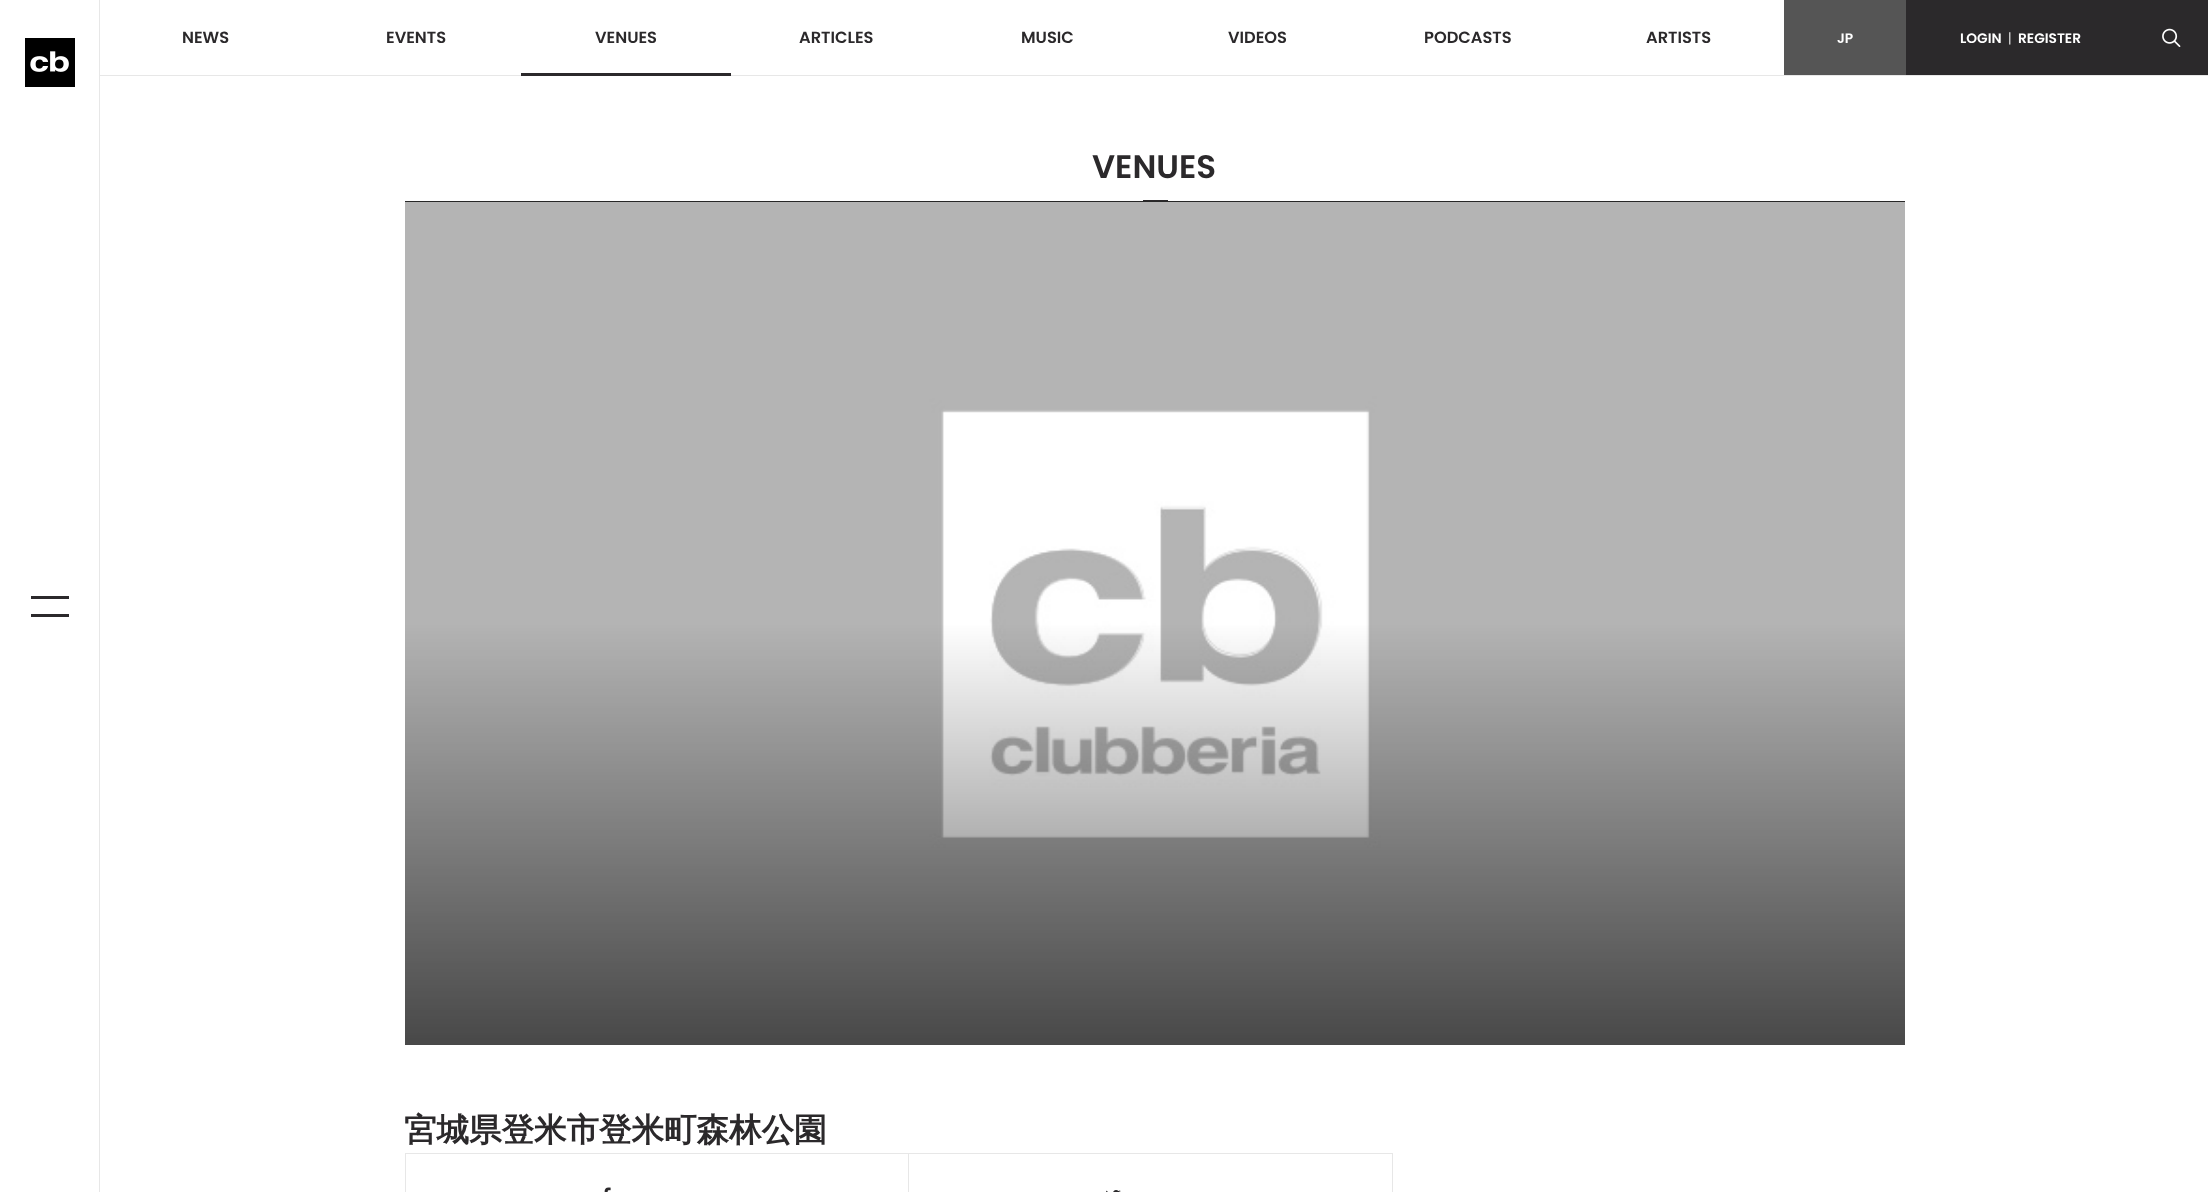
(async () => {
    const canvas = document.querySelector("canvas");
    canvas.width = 2208;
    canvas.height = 1192;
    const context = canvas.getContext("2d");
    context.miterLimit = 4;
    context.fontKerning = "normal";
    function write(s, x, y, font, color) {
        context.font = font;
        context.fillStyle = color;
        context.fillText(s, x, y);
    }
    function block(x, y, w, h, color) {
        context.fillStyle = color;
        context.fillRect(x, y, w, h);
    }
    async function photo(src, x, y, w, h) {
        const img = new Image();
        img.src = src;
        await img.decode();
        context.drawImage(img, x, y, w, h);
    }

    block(0, 0, 2208, 1192, "rgb(255, 255, 255)");
    block(99, 0, 1, 1192, "rgb(231, 231, 231)");
    await photo("media/1.png", 25, 38, 50, 49);
    block(31, 596, 38, 3, "rgb(43, 41, 43)");
    block(31, 614, 38, 3, "rgb(43, 41, 43)");
    block(100, 75, 2108, 1, "rgb(231, 231, 231)");
    write("NEWS", 182, 43, "600 16.25px Poppins", "rgb(43, 41, 43)");
    write("EVENTS", 386, 43, "600 16.25px Poppins", "rgb(43, 41, 43)");
    write("VENUES", 595, 43, "600 16.25px Poppins", "rgb(43, 41, 43)");
    block(521, 73, 210, 3, "rgb(43, 41, 43)");
    write("ARTICLES", 799, 43, "600 16.25px Poppins", "rgb(43, 41, 43)");
    write("MUSIC", 1021, 43, "600 16.25px Poppins", "rgb(43, 41, 43)");
    write("VIDEOS", 1228, 43, "600 16.25px Poppins", "rgb(43, 41, 43)");
    write("PODCASTS", 1424, 43, "600 16.25px Poppins", "rgb(43, 41, 43)");
    write("ARTISTS", 1646, 43, "600 16.25px Poppins", "rgb(43, 41, 43)");
    block(1906, 0, 302, 75, "rgb(43, 41, 43)");
    await photo("media/2.png", 2162, 28, 19, 19);
    block(1784, 0, 122, 75, "rgb(85, 85, 85)");
    write("JP", 1837, 43, "600 13.75px Poppins", "rgb(255, 255, 255)");
    write("LOGIN", 1960, 43, "600 13.75px Poppins", "rgb(255, 255, 255)");
    write("|", 2008, 43, "300 13.75px Poppins", "rgb(255, 255, 255)");
    write("REGISTER", 2018, 43, "600 13.75px Poppins", "rgb(255, 255, 255)");
    write("VENUES", 1092, 178, "600 32.5px Poppins", "rgb(43, 41, 43)");
    block(1143, 200, 25, 1, "rgb(43, 41, 43)");
    block(405, 201, 1500, 1, "rgb(26, 26, 26)");
    await photo("media/3.png", 405, 201, 1500, 844);
    write("宮城県登米市登米町森林公園", 404, 1141, "bold 32.5px WenQuanYi Zen Hei", "rgb(43, 41, 43)");
    block(405, 1153, 503, 1, "rgb(231, 231, 231)");
    block(405, 1153, 1, 39, "rgb(231, 231, 231)");
    await photo("media/4.png", 604, 1187, 7, 5);
    context.strokeStyle = "rgb(231, 231, 231)";
    context.strokeRect(908.5, 1153.5, 484, 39);
    await photo("media/5.png", 1106, 1190, 15, 2);
})();
